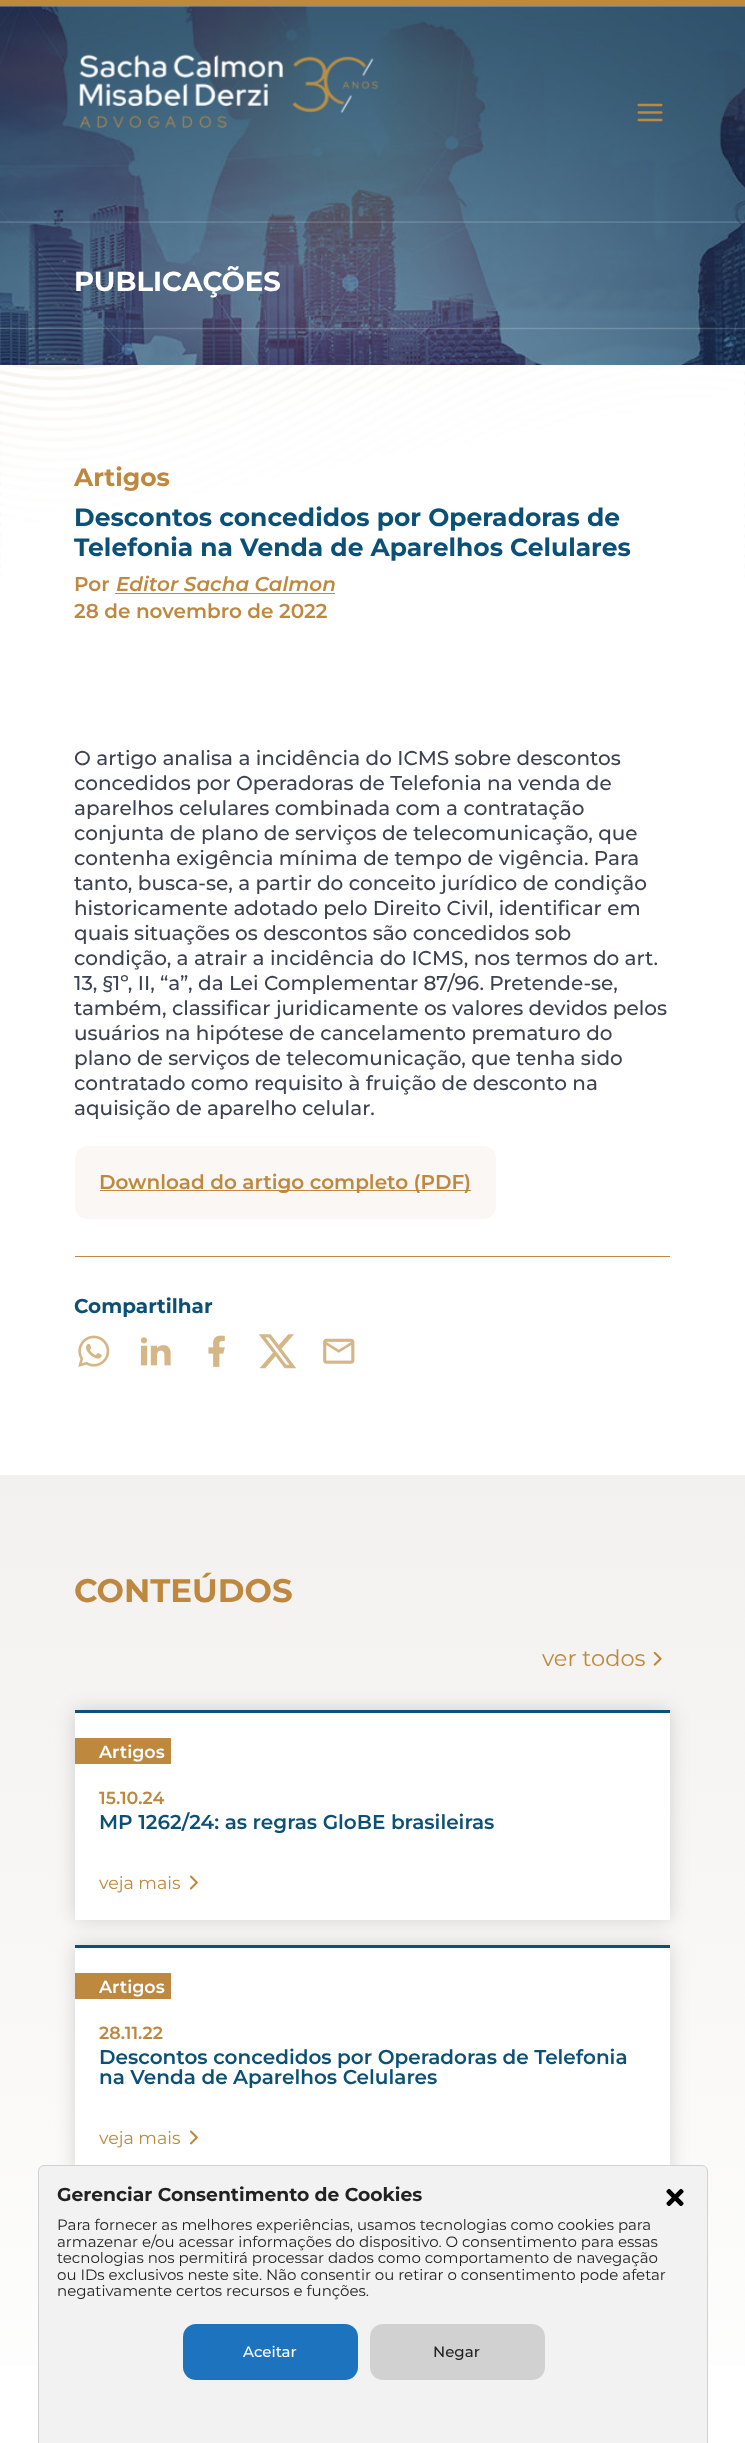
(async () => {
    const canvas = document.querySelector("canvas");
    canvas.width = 745;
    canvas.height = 2443;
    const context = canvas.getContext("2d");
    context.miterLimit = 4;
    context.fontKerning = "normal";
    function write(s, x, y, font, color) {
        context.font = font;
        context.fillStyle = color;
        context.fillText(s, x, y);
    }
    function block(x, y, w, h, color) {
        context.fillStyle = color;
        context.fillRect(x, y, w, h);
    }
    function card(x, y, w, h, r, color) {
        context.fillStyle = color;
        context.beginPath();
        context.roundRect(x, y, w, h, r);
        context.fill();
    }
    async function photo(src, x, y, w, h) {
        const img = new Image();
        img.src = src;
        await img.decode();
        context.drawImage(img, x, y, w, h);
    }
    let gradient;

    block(0, 0, 745, 2443, "rgb(255, 255, 255)");
    await photo("media/3.png", 0, 6, 745, 359);
    await photo("media/1.png", 79, 54, 299, 74);
    await photo("media/2.png", 637, 103, 26, 19);
    block(0, 0, 745, 6, "rgb(190, 136, 62)");
    write("PUBLICAÇÕES", 74, 291, "bold 27.5px Montserrat", "rgb(255, 255, 255)");
    await photo("media/4.png", 0, 365, 745, 213);
    write("Artigos", 74, 486, "bold 25px Montserrat", "rgb(190, 136, 62)");
    write("Descontos concedidos por Operadoras de", 74, 526, "bold 25px Montserrat", "rgb(11, 80, 118)");
    write("Telefonia na Venda de Aparelhos Celulares", 74, 556, "bold 25px Montserrat", "rgb(11, 80, 118)");
    write("Por", 74, 591, "600 20px Montserrat", "rgb(190, 136, 62)");
    write("Editor Sacha Calmon", 116, 591, "italic 600 20px Montserrat", "rgb(190, 136, 62)");
    block(115, 593, 220, 1, "rgb(190, 136, 62)");
    write("28 de novembro de 2022", 74, 618, "600 20px Montserrat", "rgb(190, 136, 62)");
    write("O artigo analisa a incidência do ICMS sobre descontos", 74, 765, "500 20px Montserrat", "rgb(60, 66, 80)");
    write("concedidos por Operadoras de Telefonia na venda de", 74, 790, "500 20px Montserrat", "rgb(60, 66, 80)");
    write("aparelhos celulares combinada com a contratação", 74, 815, "500 20px Montserrat", "rgb(60, 66, 80)");
    write("conjunta de plano de serviços de telecomunicação, que", 74, 840, "500 20px Montserrat", "rgb(60, 66, 80)");
    write("contenha exigência mínima de tempo de vigência. Para", 74, 865, "500 20px Montserrat", "rgb(60, 66, 80)");
    write("tanto, busca-se, a partir do conceito jurídico de condição", 74, 890, "500 20px Montserrat", "rgb(60, 66, 80)");
    write("historicamente adotado pelo Direito Civil, identificar em", 74, 915, "500 20px Montserrat", "rgb(60, 66, 80)");
    write("quais situações os descontos são concedidos sob", 74, 940, "500 20px Montserrat", "rgb(60, 66, 80)");
    write("condição, a atrair a incidência do ICMS, nos termos do art.", 74, 965, "500 20px Montserrat", "rgb(60, 66, 80)");
    write("13, §1º, II, “a”, da Lei Complementar 87/96. Pretende-se,", 74, 990, "500 20px Montserrat", "rgb(60, 66, 80)");
    write("também, classificar juridicamente os valores devidos pelos", 74, 1015, "500 20px Montserrat", "rgb(60, 66, 80)");
    write("usuários na hipótese de cancelamento prematuro do", 74, 1040, "500 20px Montserrat", "rgb(60, 66, 80)");
    write("plano de serviços de telecomunicação, que tenha sido", 74, 1065, "500 20px Montserrat", "rgb(60, 66, 80)");
    write("contratado como requisito à fruição de desconto na", 74, 1090, "500 20px Montserrat", "rgb(60, 66, 80)");
    write("aquisição de aparelho celular.", 74, 1115, "500 20px Montserrat", "rgb(60, 66, 80)");
    card(75, 1146, 421, 73, 13, "rgb(250, 247, 244)");
    block(100, 1190, 371, 1, "rgb(190, 136, 62)");
    write("Download do artigo completo (PDF)", 99, 1189, "600 20px Montserrat", "rgb(190, 136, 62)");
    block(75, 1256, 595, 1, "rgb(190, 136, 62)");
    write("Compartilhar", 74, 1313, "bold 20px Montserrat", "rgb(11, 80, 118)");
    await photo("media/5.png", 78, 1335, 32, 32);
    await photo("media/6.png", 140, 1337, 31, 29);
    await photo("media/7.png", 208, 1335, 17, 32);
    await photo("media/8.png", 259, 1334, 37, 35);
    await photo("media/9.png", 323, 1338, 32, 26);
    gradient = context.createLinearGradient(372, 1475, 373, 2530);
    gradient.addColorStop(0, "rgb(243, 241, 239)");
    gradient.addColorStop(1, "rgb(255, 255, 255)");
    context.fillStyle = gradient;
    context.fillRect(0, 1475, 745, 891);
    write("CONTEÚDOS", 74, 1602, "bold 32.5px Montserrat", "rgb(190, 136, 62)");
    write("ver todos", 542, 1666, "22.5px Montserrat", "rgb(190, 136, 62)");
    await photo("media/10.png", 653, 1651, 9, 15);
    context.fillStyle = "rgba(0, 0, 0, 0.15)";
    context.filter = "blur(9.5px)";
    context.beginPath();
    context.rect(75, 1710, 595, 210);
    context.fill();
    context.filter = "none";
    block(75, 1713, 595, 207, "rgb(255, 255, 255)");
    block(75, 1710, 595, 3, "rgb(11, 80, 118)");
    block(75, 1738, 96, 26, "rgb(190, 136, 62)");
    write("Artigos", 99, 1758, "600 17.5px Montserrat", "rgb(255, 255, 255)");
    write("15.10.24", 99, 1804, "600 17.5px Montserrat", "rgb(190, 136, 62)");
    write("MP 1262/24: as regras GloBE brasileiras", 99, 1829, "600 20px Montserrat", "rgb(11, 80, 118)");
    write("veja mais", 99, 1889, "17.5px Montserrat", "rgb(190, 136, 62)");
    await photo("media/11.png", 189, 1875, 9, 15);
    context.fillStyle = "rgba(0, 0, 0, 0.15)";
    context.filter = "blur(9.5px)";
    context.beginPath();
    context.rect(75, 1945, 595, 230);
    context.fill();
    context.filter = "none";
    block(75, 1948, 595, 217, "rgb(255, 255, 255)");
    block(75, 1945, 595, 3, "rgb(11, 80, 118)");
    block(75, 1973, 96, 26, "rgb(190, 136, 62)");
    write("Artigos", 99, 1993, "600 17.5px Montserrat", "rgb(255, 255, 255)");
    write("28.11.22", 99, 2039, "600 17.5px Montserrat", "rgb(190, 136, 62)");
    write("Descontos concedidos por Operadoras de Telefonia", 99, 2064, "600 20px Montserrat", "rgb(11, 80, 118)");
    write("na Venda de Aparelhos Celulares", 99, 2084, "600 20px Montserrat", "rgb(11, 80, 118)");
    write("veja mais", 99, 2144, "17.5px Montserrat", "rgb(190, 136, 62)");
    await photo("media/11.png", 189, 2130, 9, 15);
    context.fillStyle = "rgb(242, 242, 242)";
    context.beginPath();
    context.moveTo(44, 2165.5);
    context.lineTo(702, 2165.5);
    context.bezierCurveTo(705, 2165.5, 707.5, 2168, 707.5, 2171);
    context.lineTo(707.5, 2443.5);
    context.lineTo(38.5, 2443.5);
    context.lineTo(38.5, 2171);
    context.bezierCurveTo(38.5, 2168, 41, 2165.5, 44, 2165.5);
    context.closePath();
    context.fill();
    context.strokeStyle = "rgb(209, 209, 209)";
    context.stroke();
    write("Gerenciar Consentimento de Cookies", 57, 2201, "bold 18.75px Montserrat", "rgb(34, 34, 34)");
    write("Para fornecer as melhores experiências, usamos tecnologias como cookies para", 57, 2230, "15px Montserrat", "rgb(34, 34, 34)");
    write("armazenar e/ou acessar informações do dispositivo. O consentimento para essas", 57, 2247, "15px Montserrat", "rgb(34, 34, 34)");
    write("tecnologias nos permitirá processar dados como comportamento de navegação", 57, 2263, "15px Montserrat", "rgb(34, 34, 34)");
    write("ou IDs exclusivos neste site. Não consentir ou retirar o consentimento pode afetar", 57, 2280, "15px Montserrat", "rgb(34, 34, 34)");
    write("negativamente certos recursos e funções.", 57, 2296, "15px Montserrat", "rgb(34, 34, 34)");
    card(183, 2324, 175, 56, 13, "rgb(30, 115, 190)");
    write("Aceitar", 243, 2357, "500 15px Montserrat", "rgb(255, 255, 255)");
    card(370, 2324, 175, 56, 13, "rgb(209, 209, 209)");
    write("Negar", 433, 2357, "500 15px Montserrat", "rgb(34, 34, 34)");
    await photo("media/12.png", 666, 2188, 18, 18);
})();
